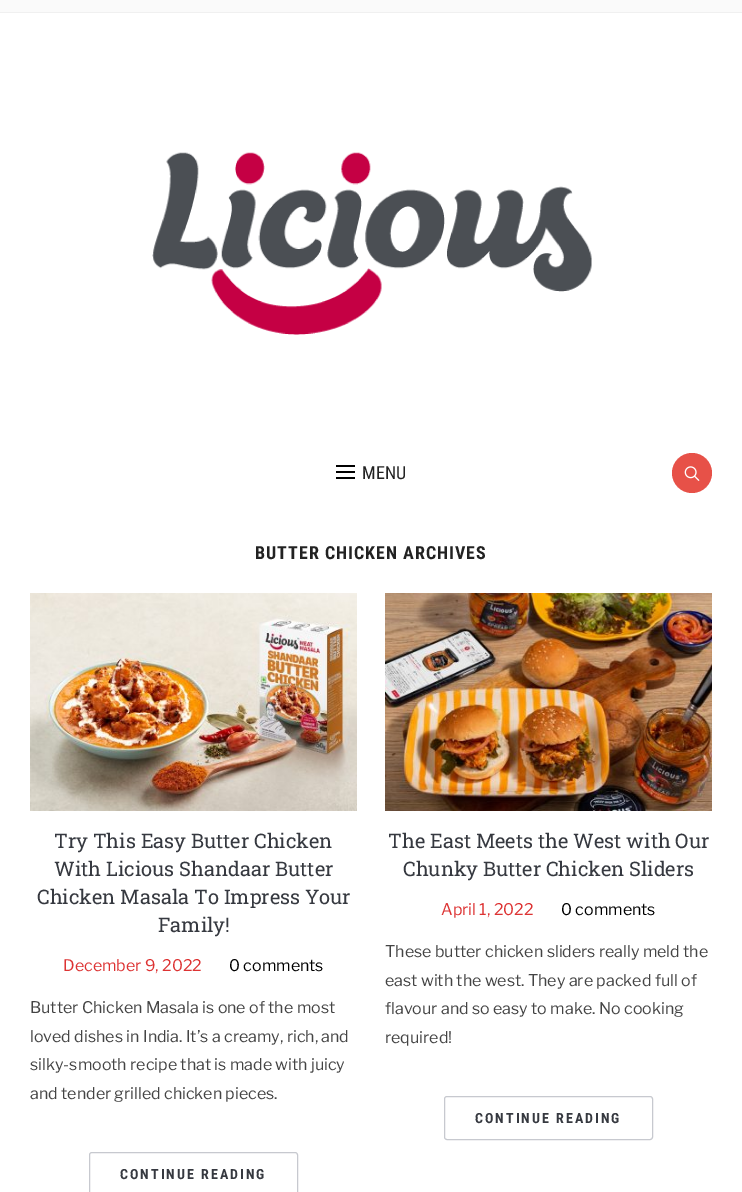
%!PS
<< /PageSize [742 1192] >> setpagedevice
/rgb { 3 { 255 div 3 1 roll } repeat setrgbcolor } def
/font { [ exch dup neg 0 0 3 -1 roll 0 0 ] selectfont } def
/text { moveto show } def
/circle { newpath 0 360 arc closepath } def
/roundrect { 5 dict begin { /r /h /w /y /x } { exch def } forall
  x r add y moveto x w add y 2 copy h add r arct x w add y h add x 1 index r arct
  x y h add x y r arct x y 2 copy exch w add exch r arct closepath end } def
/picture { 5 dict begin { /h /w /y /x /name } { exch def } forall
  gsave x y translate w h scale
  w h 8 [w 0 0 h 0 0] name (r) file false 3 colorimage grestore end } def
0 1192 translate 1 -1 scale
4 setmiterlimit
255 255 255 rgb
0 0 742 1192 rectfill
250 250 250 rgb
0 0 742 12 rectfill
240 240 240 rgb
0 12 742 1 rectfill
(img_01.rgb) 152 152 440 183 picture
0 0 0 rgb
336 465 19 2 rectfill
336 471 19 2 rectfill
336 477 19 2 rectfill
231 81 72 rgb
692 473 20 circle fill
(img_02.rgb) 684 466 16 15 picture
(img_03.rgb) 30 593 327 218 picture
199 201 207 rgb
89.5 1152.5 208 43 2.5 roundrect stroke
(img_04.rgb) 385 593 327 218 picture
444.5 1096.5 208 43 2.5 roundrect stroke
/RobotoCondensed-Regular 18 font
34 34 34 rgb
(MENU) 362 479 text
/RobotoCondensed-Bold 18 font
255 559 moveto 1 0 (BUTTER CHICKEN ARCHIVES) ashow
/RobotoSlab-Regular 20 font
54 57 64 rgb
(Try This Easy Butter Chicken) 54 848 text
(With Licious Shandaar Butter) 54 876 text
(Chicken Masala To Impress Your) 37 904 text
(Family!) 158 932 text
/LibreFranklin-Regular 16 font
221 51 51 rgb
(December 9, 2022) 63 971 text
0 0 0 rgb
(0 comments) 229 971 text
68 68 68 rgb
(Butter Chicken Masala is one of the most) 30 1013 text
(loved dishes in India. It’s a creamy, rich, and) 30 1042 text
(silky-smooth recipe that is made with juicy) 30 1070 text
(and tender grilled chicken pieces.) 30 1099 text
/RobotoCondensed-Bold 14 font
54 57 64 rgb
120 1179 moveto 2 0 (CONTINUE READING) ashow
/RobotoSlab-Regular 20 font
(The East Meets the West with Our) 388 848 text
(Chunky Butter Chicken Sliders) 403 876 text
/LibreFranklin-Regular 16 font
221 51 51 rgb
(April 1, 2022) 441 915 text
0 0 0 rgb
(0 comments) 561 915 text
68 68 68 rgb
(These butter chicken sliders really meld the) 385 957 text
(east with the west. They are packed full of) 385 986 text
(flavour and so easy to make. No cooking) 385 1014 text
(required!) 385 1043 text
/RobotoCondensed-Bold 14 font
54 57 64 rgb
475 1123 moveto 2 0 (CONTINUE READING) ashow
showpage
